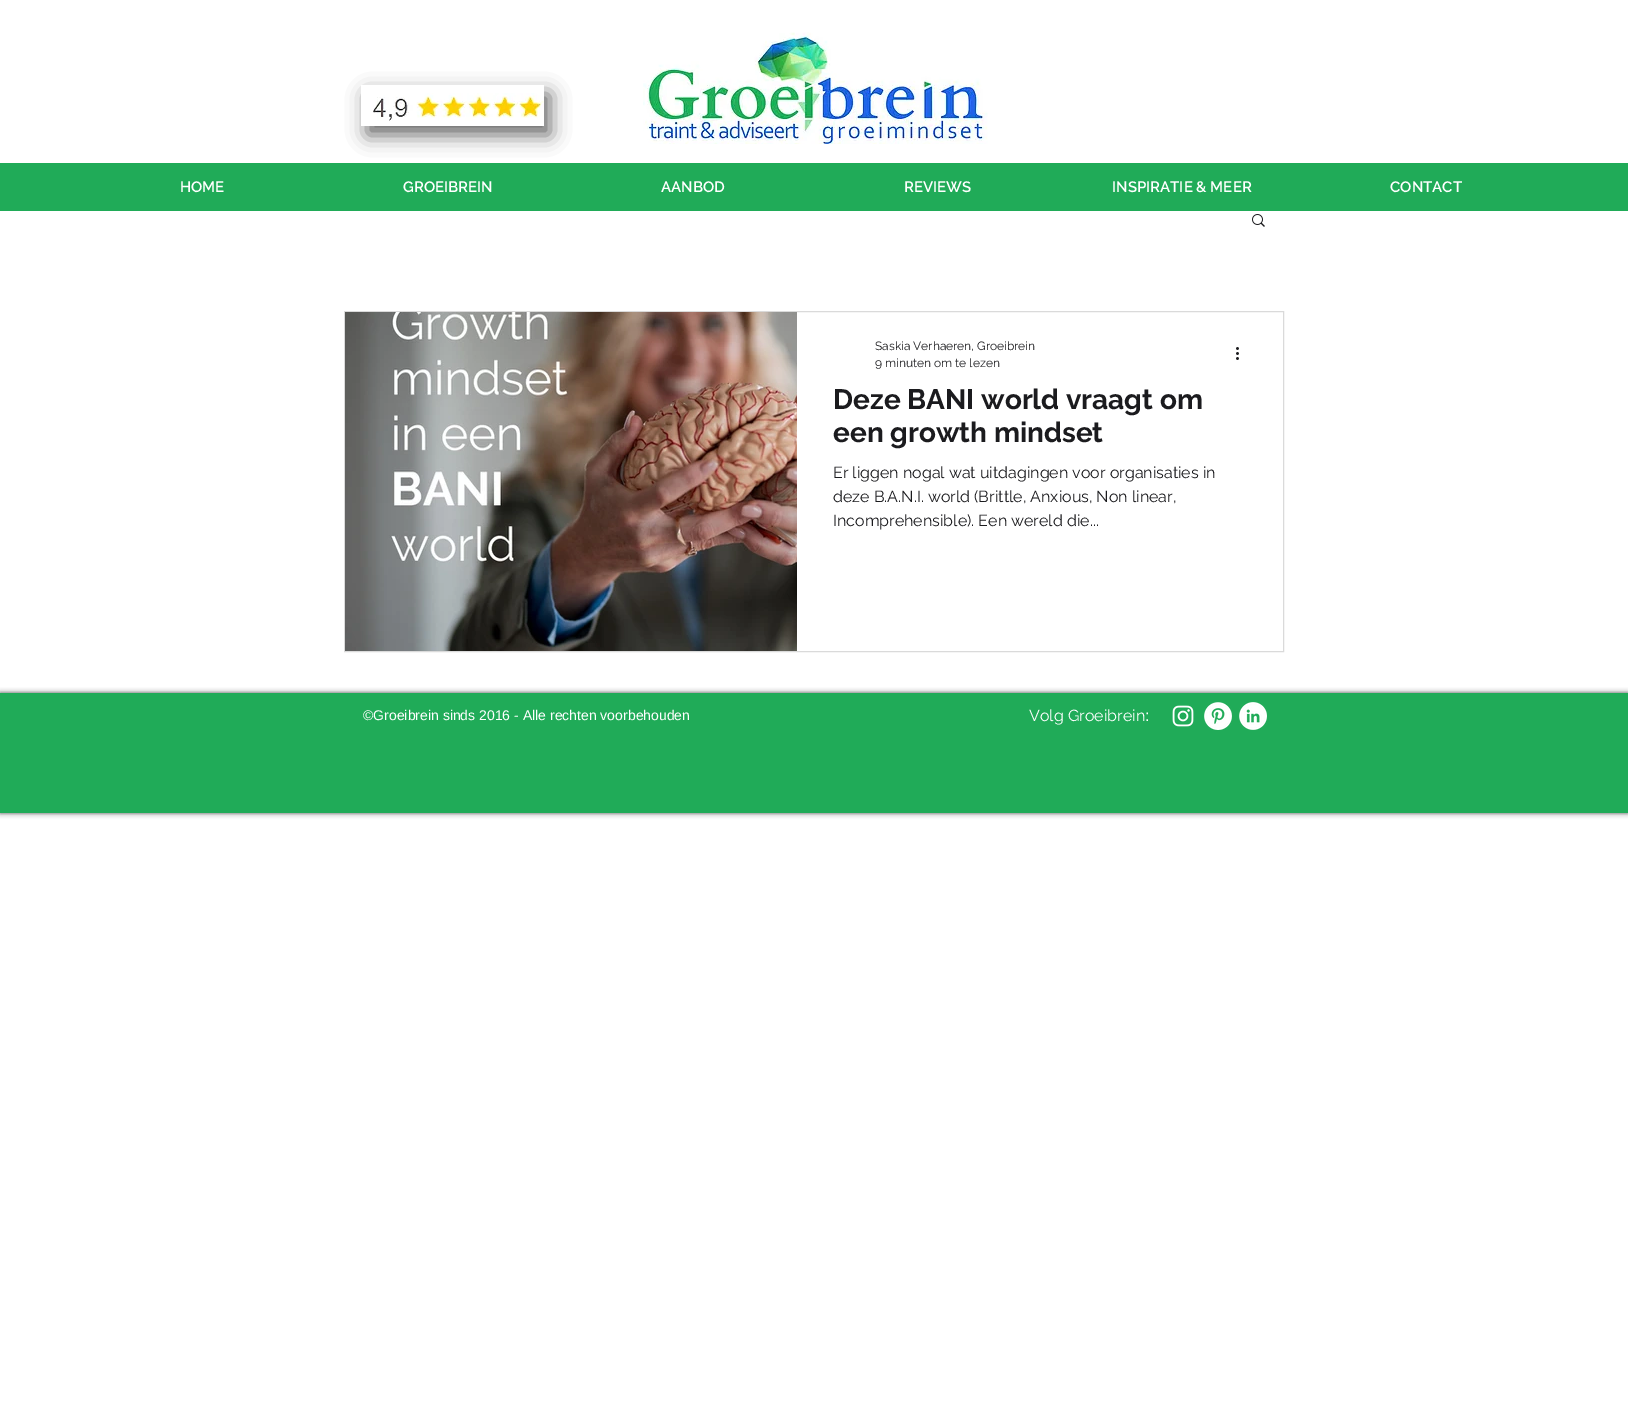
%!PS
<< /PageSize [1628 1427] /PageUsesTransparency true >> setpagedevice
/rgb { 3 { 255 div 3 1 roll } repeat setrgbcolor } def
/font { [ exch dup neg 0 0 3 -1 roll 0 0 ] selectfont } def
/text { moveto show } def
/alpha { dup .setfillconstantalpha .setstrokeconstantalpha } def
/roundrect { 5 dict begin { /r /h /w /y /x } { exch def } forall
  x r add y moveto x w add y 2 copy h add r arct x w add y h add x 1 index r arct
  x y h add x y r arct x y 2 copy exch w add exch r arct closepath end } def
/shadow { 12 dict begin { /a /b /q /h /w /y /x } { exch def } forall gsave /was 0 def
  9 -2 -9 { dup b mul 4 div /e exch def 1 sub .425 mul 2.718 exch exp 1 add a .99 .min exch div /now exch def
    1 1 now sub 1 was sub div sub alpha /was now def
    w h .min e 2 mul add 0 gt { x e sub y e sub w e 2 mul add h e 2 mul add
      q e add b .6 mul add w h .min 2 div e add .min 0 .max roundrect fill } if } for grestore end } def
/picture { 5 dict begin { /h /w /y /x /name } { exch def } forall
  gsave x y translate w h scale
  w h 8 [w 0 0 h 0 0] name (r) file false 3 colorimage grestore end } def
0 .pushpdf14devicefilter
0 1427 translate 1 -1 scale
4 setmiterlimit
255 255 255 rgb
0 0 1628 1427 rectfill
gsave
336 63 moveto 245 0 rlineto 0 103 rlineto -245 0 rlineto closepath 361 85 moveto 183 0 rlineto 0 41 rlineto -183 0 rlineto closepath eoclip newpath
0 0 0 rgb
367 94 183 41 0 10 0.6 shadow
grestore
(img_01.rgb) 373 93 171 28 picture
(img_02.rgb) 643 32 345 112 picture
32 171 88 rgb
0 163 1628 48 rectfill
(img_03.rgb) 1252 214 13 13 picture
218 218 218 rgb
344.5 311.5 939 340 rectstroke
(img_04.rgb) 345 312 452 339 picture
(img_05.rgb) 1236 347 3 13 picture
0 0 0 rgb
0 693 1628 120 0 2.5 0.7 shadow
32 171 88 rgb
0 693 1628 120 rectfill
(img_06.rgb) 1172 705 22 22 picture
(img_07.rgb) 1204 702 28 28 picture
(img_08.rgb) 1239 702 28 28 picture
/Raleway-SemiBold 15 font
255 255 255 rgb
(HOME) 180 192 text
(GROEIBREIN) 403 192 text
(AANBOD) 661 192 text
(REVIEWS) 904 192 text
(INSPIRATIE & MEER) 1112 192 text
(CONTACT) 1390 192 text
/Raleway-Regular 12 font
27 27 30 rgb
(Saskia Verhaeren, Groeibrein) 875 350 text
(9 minuten om te lezen) 875 367 text
/Raleway-Bold 28 font
(Deze BANI world vraagt om) 833 409 text
(een growth mindset) 833 442 text
/Raleway-Regular 16 font
(Er liggen nogal wat uitdagingen voor organisaties in) 833 478 text
(deze B.A.N.I. world \(Brittle, Anxious, Non linear,) 833 502 text
(Incomprehensible\). Een wereld die...) 833 526 text
/LiberationSans-Regular 14 font
255 255 255 rgb
(©Groeibrein sinds 2016 - Alle rechten voorbehouden) 363 720 text
/Raleway-Regular 16 font
(Volg Groeibrein) 1029 721 text
/LiberationSans-Regular 16 font
(:) 1145 721 text
.poppdf14devicefilter showpage
